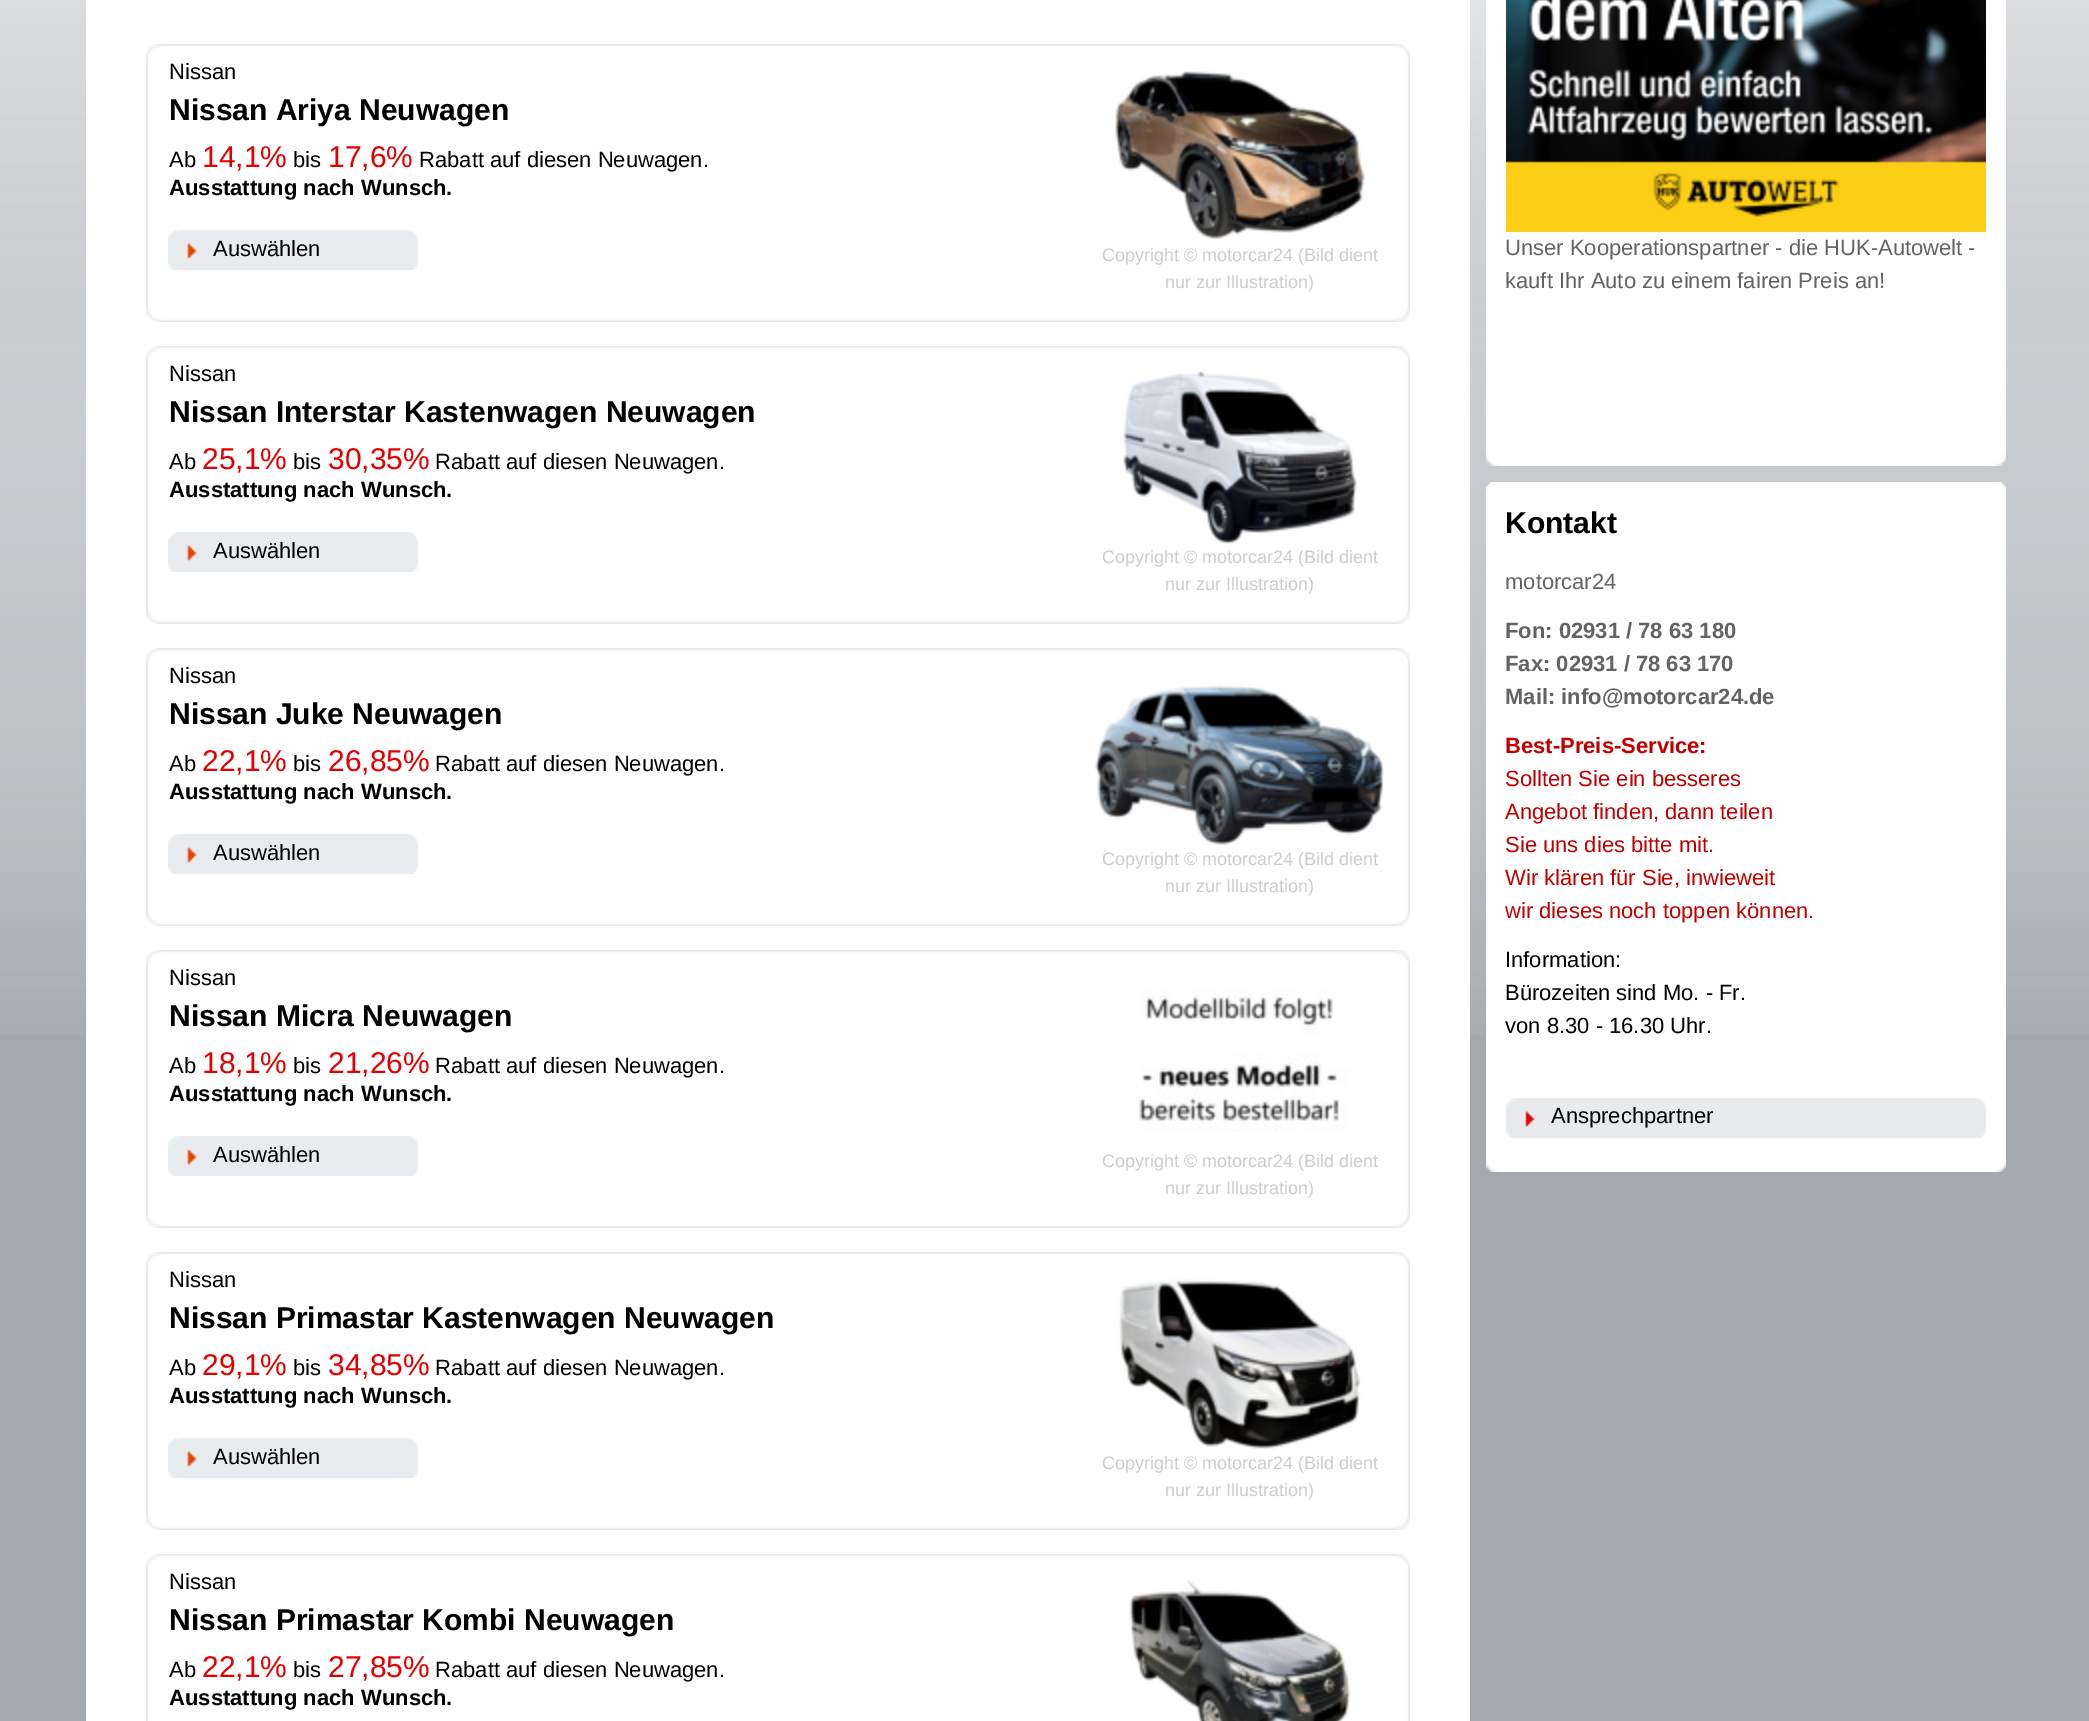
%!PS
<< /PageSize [2089 1721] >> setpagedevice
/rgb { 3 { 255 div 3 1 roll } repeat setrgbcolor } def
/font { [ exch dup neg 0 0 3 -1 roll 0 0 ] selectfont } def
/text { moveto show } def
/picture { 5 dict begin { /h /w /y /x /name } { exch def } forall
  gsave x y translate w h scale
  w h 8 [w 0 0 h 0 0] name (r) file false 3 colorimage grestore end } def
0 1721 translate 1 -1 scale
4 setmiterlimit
164 169 173 rgb
0 0 2089 1721 rectfill
(img_01.rgb) 0 0 2089 1035 picture
255 255 255 rgb
86 0 1384 1721 rectfill
(img_02.rgb) 146 44 1264 14 picture
(img_03.rgb) 146 58 1264 264 picture
(img_04.rgb) 168 230 250 40 picture
(img_05.rgb) 1115 71 250 168 picture
(img_02.rgb) 146 346 1264 14 picture
(img_03.rgb) 146 360 1264 264 picture
(img_04.rgb) 168 532 250 40 picture
(img_06.rgb) 1123 371 234 173 picture
(img_02.rgb) 146 648 1264 14 picture
(img_03.rgb) 146 662 1264 264 picture
(img_04.rgb) 168 834 250 40 picture
(img_07.rgb) 1095 685 289 160 picture
(img_02.rgb) 146 950 1264 14 picture
(img_03.rgb) 146 964 1264 264 picture
(img_04.rgb) 168 1136 250 40 picture
(img_08.rgb) 1139 990 209 142 picture
(img_02.rgb) 146 1252 1264 14 picture
(img_03.rgb) 146 1266 1264 264 picture
(img_04.rgb) 168 1438 250 40 picture
(img_09.rgb) 1119 1278 242 171 picture
(img_02.rgb) 146 1554 1264 14 picture
(img_10.rgb) 146 1568 1264 153 picture
(img_11.rgb) 1129 1580 222 141 picture
1486 0 520 452 rectfill
(img_12.rgb) 1506 0 480 232 picture
(img_13.rgb) 1486 452 520 14 picture
(img_14.rgb) 1486 482 520 676 picture
(img_15.rgb) 1506 1098 480 40 picture
(img_16.rgb) 1486 1158 520 14 picture
/LiberationSans-Regular 22 font
0 0 0 rgb
(Nissan) 169 79 text
/LiberationSans-Bold 30 font
(Nissan Ariya Neuwagen) 169 120 text
/LiberationSans-Regular 22 font
(Ab) 169 167 text
/LiberationSans-Regular 30 font
227 0 0 rgb
(14,1%) 202 167 text
/LiberationSans-Regular 22 font
0 0 0 rgb
(bis) 293 167 text
/LiberationSans-Regular 30 font
227 0 0 rgb
(17,6%) 328 167 text
/LiberationSans-Regular 22 font
0 0 0 rgb
(Rabatt auf diesen Neuwagen.) 419 167 text
/LiberationSans-Bold 22 font
(Ausstattung nach Wunsch.) 169 195 text
/LiberationSans-Regular 22 font
(Auswählen) 213 256 text
/LiberationSans-Regular 18 font
204 204 204 rgb
(Copyright © motorcar24 \(Bild dient) 1102 261 text
(nur zur Illustration\)) 1165 288 text
/LiberationSans-Regular 22 font
0 0 0 rgb
(Nissan) 169 381 text
/LiberationSans-Bold 30 font
(Nissan Interstar Kastenwagen Neuwagen) 169 422 text
/LiberationSans-Regular 22 font
(Ab) 169 469 text
/LiberationSans-Regular 30 font
227 0 0 rgb
(25,1%) 202 469 text
/LiberationSans-Regular 22 font
0 0 0 rgb
(bis) 293 469 text
/LiberationSans-Regular 30 font
227 0 0 rgb
(30,35%) 328 469 text
/LiberationSans-Regular 22 font
0 0 0 rgb
(Rabatt auf diesen Neuwagen.) 435 469 text
/LiberationSans-Bold 22 font
(Ausstattung nach Wunsch.) 169 497 text
/LiberationSans-Regular 22 font
(Auswählen) 213 558 text
/LiberationSans-Regular 18 font
204 204 204 rgb
(Copyright © motorcar24 \(Bild dient) 1102 563 text
(nur zur Illustration\)) 1165 590 text
/LiberationSans-Regular 22 font
0 0 0 rgb
(Nissan) 169 683 text
/LiberationSans-Bold 30 font
(Nissan Juke Neuwagen) 169 724 text
/LiberationSans-Regular 22 font
(Ab) 169 771 text
/LiberationSans-Regular 30 font
227 0 0 rgb
(22,1%) 202 771 text
/LiberationSans-Regular 22 font
0 0 0 rgb
(bis) 293 771 text
/LiberationSans-Regular 30 font
227 0 0 rgb
(26,85%) 328 771 text
/LiberationSans-Regular 22 font
0 0 0 rgb
(Rabatt auf diesen Neuwagen.) 435 771 text
/LiberationSans-Bold 22 font
(Ausstattung nach Wunsch.) 169 799 text
/LiberationSans-Regular 22 font
(Auswählen) 213 860 text
/LiberationSans-Regular 18 font
204 204 204 rgb
(Copyright © motorcar24 \(Bild dient) 1102 865 text
(nur zur Illustration\)) 1165 892 text
/LiberationSans-Regular 22 font
0 0 0 rgb
(Nissan) 169 985 text
/LiberationSans-Bold 30 font
(Nissan Micra Neuwagen) 169 1026 text
/LiberationSans-Regular 22 font
(Ab) 169 1073 text
/LiberationSans-Regular 30 font
227 0 0 rgb
(18,1%) 202 1073 text
/LiberationSans-Regular 22 font
0 0 0 rgb
(bis) 293 1073 text
/LiberationSans-Regular 30 font
227 0 0 rgb
(21,26%) 328 1073 text
/LiberationSans-Regular 22 font
0 0 0 rgb
(Rabatt auf diesen Neuwagen.) 435 1073 text
/LiberationSans-Bold 22 font
(Ausstattung nach Wunsch.) 169 1101 text
/LiberationSans-Regular 22 font
(Auswählen) 213 1162 text
/LiberationSans-Regular 18 font
204 204 204 rgb
(Copyright © motorcar24 \(Bild dient) 1102 1167 text
(nur zur Illustration\)) 1165 1194 text
/LiberationSans-Regular 22 font
0 0 0 rgb
(Nissan) 169 1287 text
/LiberationSans-Bold 30 font
(Nissan Primastar Kastenwagen Neuwagen) 169 1328 text
/LiberationSans-Regular 22 font
(Ab) 169 1375 text
/LiberationSans-Regular 30 font
227 0 0 rgb
(29,1%) 202 1375 text
/LiberationSans-Regular 22 font
0 0 0 rgb
(bis) 293 1375 text
/LiberationSans-Regular 30 font
227 0 0 rgb
(34,85%) 328 1375 text
/LiberationSans-Regular 22 font
0 0 0 rgb
(Rabatt auf diesen Neuwagen.) 435 1375 text
/LiberationSans-Bold 22 font
(Ausstattung nach Wunsch.) 169 1403 text
/LiberationSans-Regular 22 font
(Auswählen) 213 1464 text
/LiberationSans-Regular 18 font
204 204 204 rgb
(Copyright © motorcar24 \(Bild dient) 1102 1469 text
(nur zur Illustration\)) 1165 1496 text
/LiberationSans-Regular 22 font
0 0 0 rgb
(Nissan) 169 1589 text
/LiberationSans-Bold 30 font
(Nissan Primastar Kombi Neuwagen) 169 1630 text
/LiberationSans-Regular 22 font
(Ab) 169 1677 text
/LiberationSans-Regular 30 font
227 0 0 rgb
(22,1%) 202 1677 text
/LiberationSans-Regular 22 font
0 0 0 rgb
(bis) 293 1677 text
/LiberationSans-Regular 30 font
227 0 0 rgb
(27,85%) 328 1677 text
/LiberationSans-Regular 22 font
0 0 0 rgb
(Rabatt auf diesen Neuwagen.) 435 1677 text
/LiberationSans-Bold 22 font
(Ausstattung nach Wunsch.) 169 1705 text
/LiberationSans-Regular 22 font
99 99 99 rgb
(Unser Kooperationspartner - die HUK-Autowelt -) 1505 255 text
(kauft Ihr Auto zu einem fairen Preis an!) 1505 288 text
/LiberationSans-Bold 30 font
0 0 0 rgb
(Kontakt) 1505 533 text
/LiberationSans-Regular 22 font
99 99 99 rgb
(motorcar24) 1505 589 text
/LiberationSans-Bold 22 font
(Fon: 02931 / 78 63 180) 1505 638 text
(Fax: 02931 / 78 63 170) 1505 671 text
(Mail: info@motorcar24.de) 1505 704 text
192 0 0 rgb
(Best-Preis-Service:) 1505 753 text
/LiberationSans-Regular 22 font
(Sollten Sie ein besseres) 1505 786 text
(Angebot finden, dann teilen) 1505 819 text
(Sie uns dies bitte mit.) 1505 852 text
(Wir klären für Sie, inwieweit) 1505 885 text
(wir dieses noch toppen können.) 1505 918 text
0 0 0 rgb
(Information:) 1505 967 text
(Bürozeiten sind Mo. - Fr.) 1505 1000 text
(von 8.30 - 16.30 Uhr.) 1505 1033 text
(Ansprechpartner) 1551 1123 text
showpage
